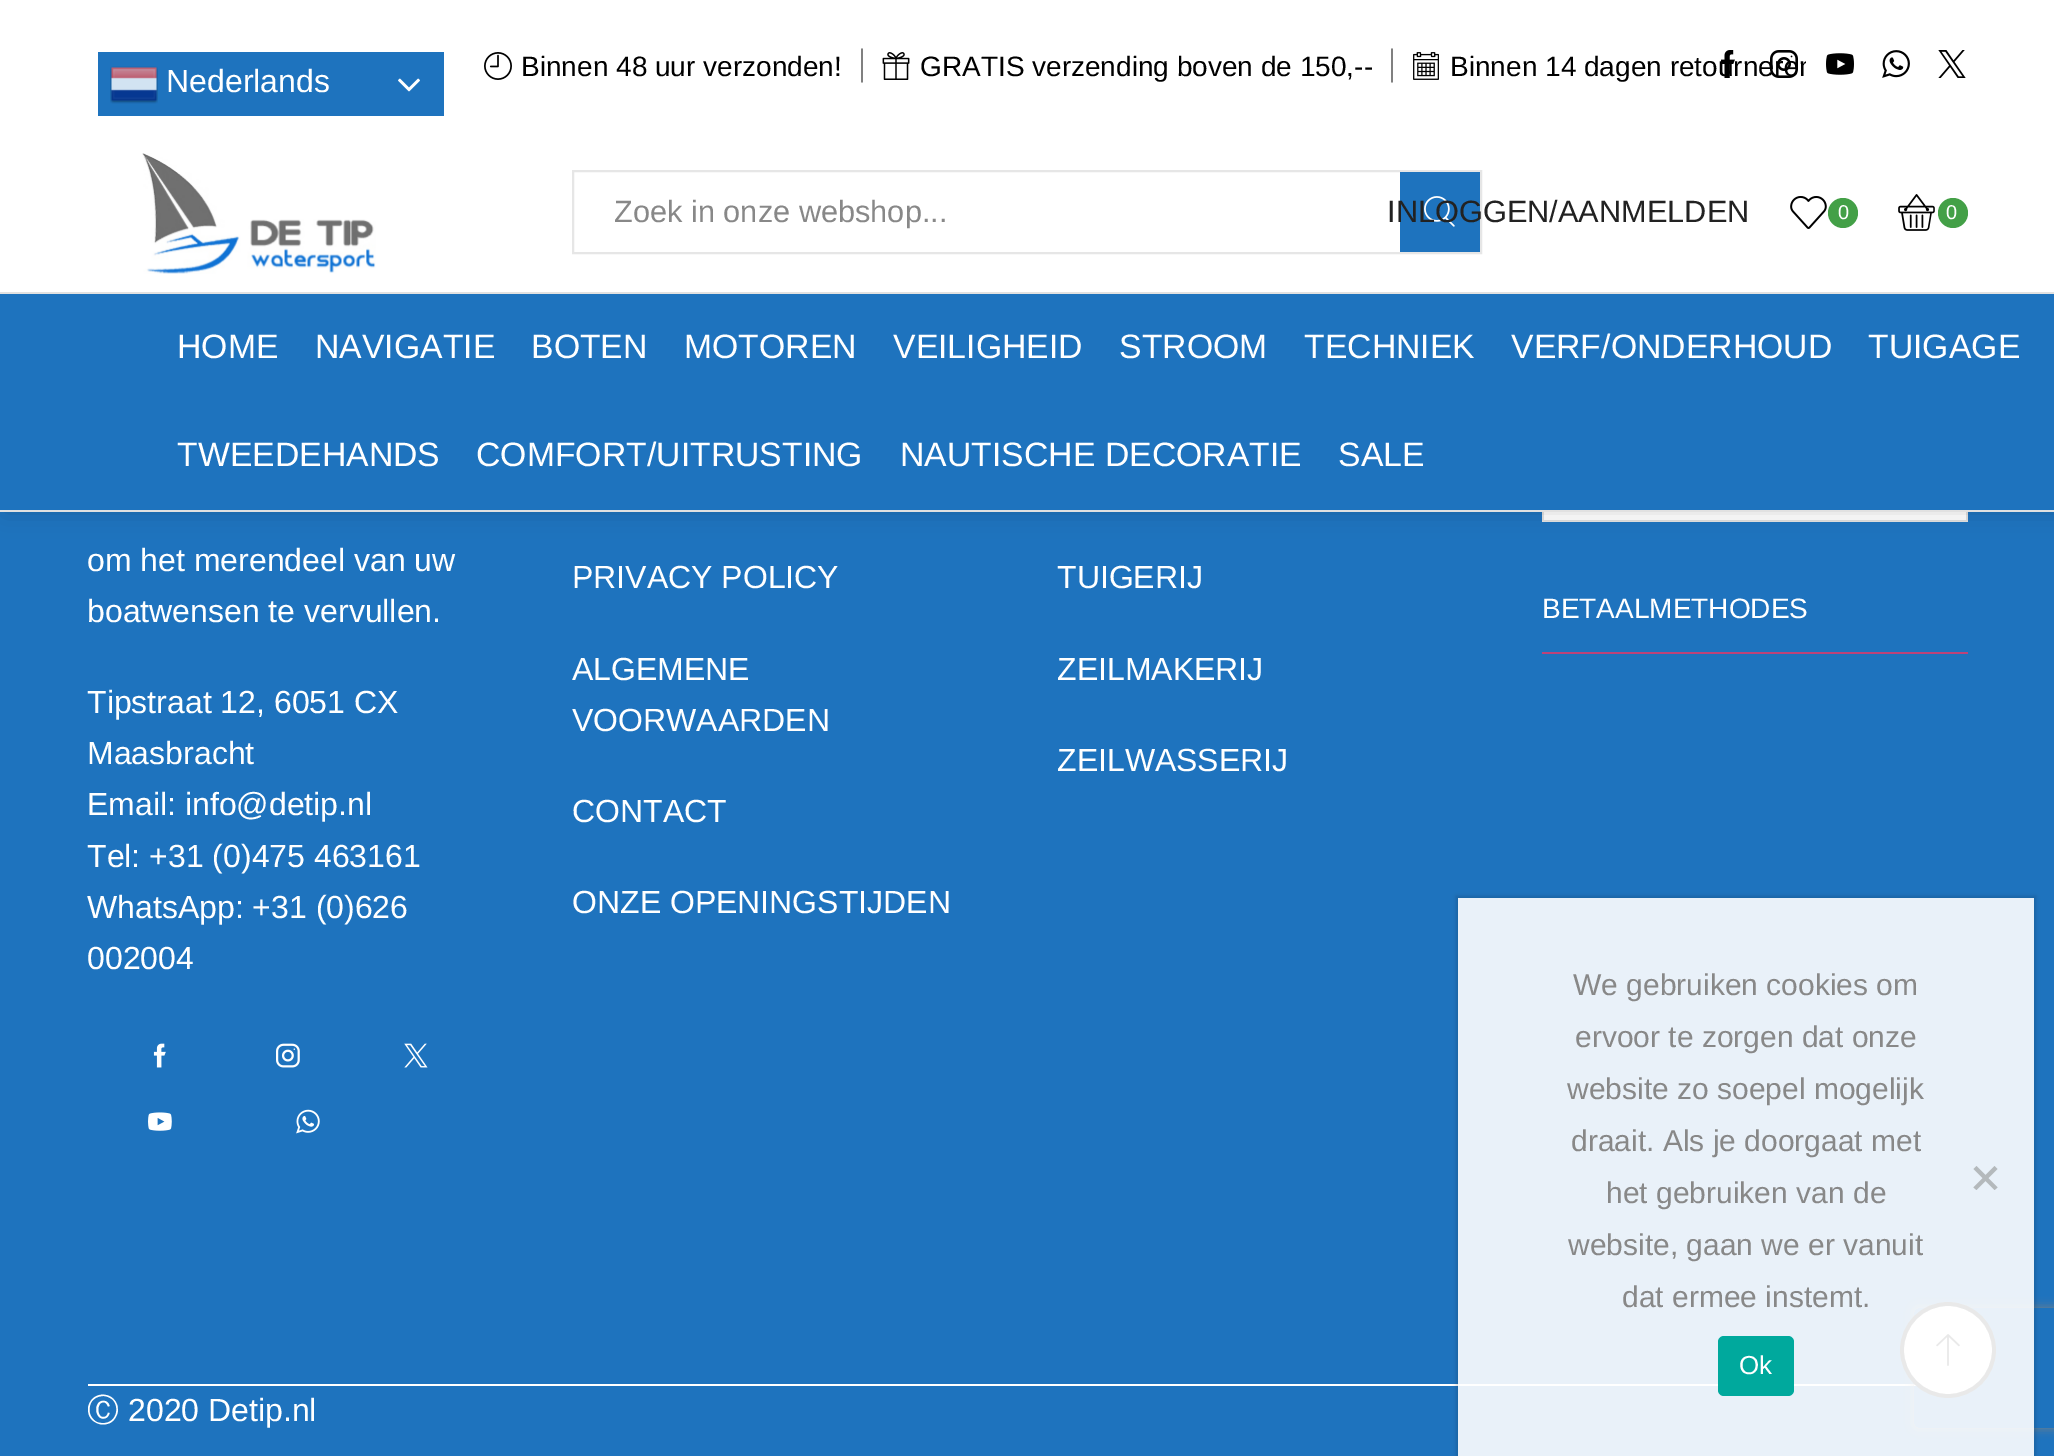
%!PS
<< /PageSize [2054 1456] /PageUsesTransparency true >> setpagedevice
/rgb { 3 { 255 div 3 1 roll } repeat setrgbcolor } def
/font { [ exch dup neg 0 0 3 -1 roll 0 0 ] selectfont } def
/text { moveto show } def
/alpha { dup .setfillconstantalpha .setstrokeconstantalpha } def
/circle { newpath 0 360 arc closepath } def
/roundrect { 5 dict begin { /r /h /w /y /x } { exch def } forall
  x r add y moveto x w add y 2 copy h add r arct x w add y h add x 1 index r arct
  x y h add x y r arct x y 2 copy exch w add exch r arct closepath end } def
/shadow { 12 dict begin { /a /b /q /h /w /y /x } { exch def } forall gsave /was 0 def
  9 -2 -9 { dup b mul 4 div /e exch def 1 sub .425 mul 2.718 exch exp 1 add a .99 .min exch div /now exch def
    1 1 now sub 1 was sub div sub alpha /was now def
    w h .min e 2 mul add 0 gt { x e sub y e sub w e 2 mul add h e 2 mul add
      q e add b .6 mul add w h .min 2 div e add .min 0 .max roundrect fill } if } for grestore end } def
/picture { 5 dict begin { /h /w /y /x /name } { exch def } forall
  gsave x y translate w h scale
  w h 8 [w 0 0 h 0 0] name (r) file false 3 colorimage grestore end } def
0 .pushpdf14devicefilter
0 1456 translate 1 -1 scale
4 setmiterlimit
30 115 190 rgb
0 0 2054 1456 rectfill
255 255 255 rgb
1544 512 422 8 rectfill
225 225 225 rgb
1542 520 266 2 rectfill
1542 512 2 10 rectfill
1966 512 2 10 rectfill
1808 520 160 2 rectfill
0 0 0 rgb
4 294 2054 218 0 12 0.15 shadow
255 255 255 rgb
0 0 2054 292 rectfill
30 115 190 rgb
98 52 346 64 rectfill
(img_01.rgb) 110 66 48 38 picture
(img_02.rgb) 398 78 22 14 picture
(img_03.rgb) 484 52 28 28 picture
(img_04.rgb) 882 52 28 28 picture
(img_05.rgb) 1413 52 26 28 picture
(img_08.rgb) 1826 53 28 22 picture
(img_09.rgb) 1882 50 28 28 picture
(img_10.rgb) 1938 50 28 28 picture
225 225 225 rgb
0 292 2054 2 rectfill
(img_11.rgb) 142 153 234 121 picture
230 230 230 rgb
2 setlinewidth
573 171 908 82 rectstroke
30 115 190 rgb
1400 172 80 80 rectfill
(img_12.rgb) 1424 196 31 31 picture
(img_13.rgb) 1790 196 37 33 picture
67 160 71 rgb
1843 213 15 circle fill
(img_14.rgb) 1898 194 37 37 picture
1953 213 15 circle fill
30 115 190 rgb
0 294 2054 216 rectfill
225 225 225 rgb
0 510 2054 2 rectfill
(img_15.rgb) 153 1043 13 25 picture
(img_16.rgb) 276 1043 24 25 picture
(img_17.rgb) 404 1043 24 25 picture
(img_18.rgb) 148 1112 24 19 picture
(img_19.rgb) 296 1109 24 25 picture
189 67 121 rgb
1542 652 426 2 rectfill
255 255 255 rgb
88 1384 1829 2 rectfill
gsave
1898 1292 moveto 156 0 rlineto 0 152 rlineto -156 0 rlineto closepath 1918 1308 moveto 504 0 rlineto 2 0 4 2 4 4 rcurveto 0 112 rlineto 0 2 -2 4 -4 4 rcurveto -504 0 rlineto -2 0 -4 -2 -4 -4 rcurveto 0 -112 rlineto 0 -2 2 -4 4 -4 rcurveto closepath eoclip newpath
128 128 128 rgb
1914 1308 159 120 4 5 1 shadow
grestore
1948 1350 45 circle gsave fill grestore
225 225 225 rgb
stroke
34 34 34 rgb
3.8 setlinewidth
1948 1304 moveto 25.5 0 46 20.5 46 46 rcurveto 0 25.5 -20.5 46 -46 46 rcurveto -25.5 0 -46 -20.5 -46 -46 rcurveto 0 -25.5 20.5 -46 46 -46 rcurveto stroke
(img_20.rgb) 1936 1334 24 32 picture
gsave
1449 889 moveto 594 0 rlineto 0 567 rlineto -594 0 rlineto closepath 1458 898 moveto 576 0 rlineto 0 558 rlineto -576 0 rlineto closepath eoclip newpath
0 0 0 rgb
1456 896 580 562 0 2 0.15 shadow
grestore
0.9 alpha
255 255 255 rgb
1458 898 576 558 rectfill
1 alpha
180 185 188 rgb
1994.5 1166 moveto 3 3 rlineto -21 21 rlineto -3 -2.5 rlineto closepath fill
1973.5 1169 moveto 3 -3 rlineto 21 21.5 rlineto -3 2.5 rlineto closepath fill
0 169 157 rgb
1718 1336 76 60 6 roundrect fill
/LiberationSans-Regular 32 font
255 255 255 rgb
(Nederlands) 166 92 text
/LiberationSans-Regular 28 font
0 0 0 rgb
(Binnen 48 uur verzonden!) 521 76 text
/LiberationSerif-Regular 28 font
128 128 128 rgb
(│) 852 74 text
/LiberationSans-Regular 28 font
0 0 0 rgb
(GRATIS verzending boven de 150,--) 920 76 text
/LiberationSerif-Regular 28 font
128 128 128 rgb
(│) 1382 74 text
gsave
484 40 1322 52 rectclip
/LiberationSans-Regular 28 font
0 0 0 rgb
(Binnen 14 dagen retourneren) 1450 76 text
grestore
(img_06.rgb) 1721 50 14 28 picture
(img_07.rgb) 1770 50 28 28 picture
/LiberationSans-Regular 30.75 font
136 136 136 rgb
(Zoek in onze webshop...) 614 222 text
34 34 34 rgb
(INLOGGEN/AANMELDEN) 1387 222 text
/LiberationSans-Regular 20 font
255 255 255 rgb
(0) 1838 219 text
(0) 1946 219 text
/LiberationSans-Regular 33.8 font
(HOME) 177 358 text
(NAVIGATIE) 315 358 text
(BOTEN) 531 358 text
(MOTOREN) 684 358 text
(VEILIGHEID) 893 358 text
(STROOM) 1119 358 text
(TECHNIEK) 1304 358 text
(VERF/ONDERHOUD) 1511 358 text
(TUIGAGE) 1868 358 text
(TWEEDEHANDS) 177 466 text
(COMFORT/UITRUSTING) 476 466 text
(NAUTISCHE DECORATIE) 900 466 text
(SALE) 1338 466 text
/LiberationSans-Regular 32 font
(om het merendeel van uw) 87 571 text
(boatwensen te vervullen.) 87 622 text
(Tipstraat 12, 6051 CX) 87 713 text
(Maasbracht) 87 764 text
(Email: info@detip.nl) 87 815 text
(Tel: +31 \(0\)475 463161) 87 867 text
(WhatsApp: +31 \(0\)626) 87 918 text
(002004) 87 969 text
(PRIVACY POLICY) 572 588 text
(ALGEMENE) 572 680 text
(VOORWAARDEN) 572 731 text
(CONTACT) 572 822 text
(ONZE OPENINGSTIJDEN) 572 913 text
(TUIGERIJ) 1057 588 text
(ZEILMAKERIJ) 1057 680 text
(ZEILWASSERIJ) 1057 771 text
/LiberationSans-Regular 28 font
(BETAALMETHODES) 1542 618 text
/WenQuanYiZenHei-Medium 32 font
(Ⓒ) 87 1421 text
/LiberationSans-Regular 32 font
(2020 Detip.nl) 128 1421 text
/LiberationSans-Regular 30 font
136 136 136 rgb
(We gebruiken cookies om) 1573 995 text
(ervoor te zorgen dat onze) 1575 1047 text
(website zo soepel mogelijk) 1567 1099 text
(draait. Als je doorgaat met) 1571 1151 text
(het gebruiken van de) 1606 1203 text
(website, gaan we er vanuit) 1568 1255 text
(dat ermee instemt.) 1622 1307 text
/LiberationSans-Regular 26 font
255 255 255 rgb
(Ok) 1739 1374 text
.poppdf14devicefilter showpage
